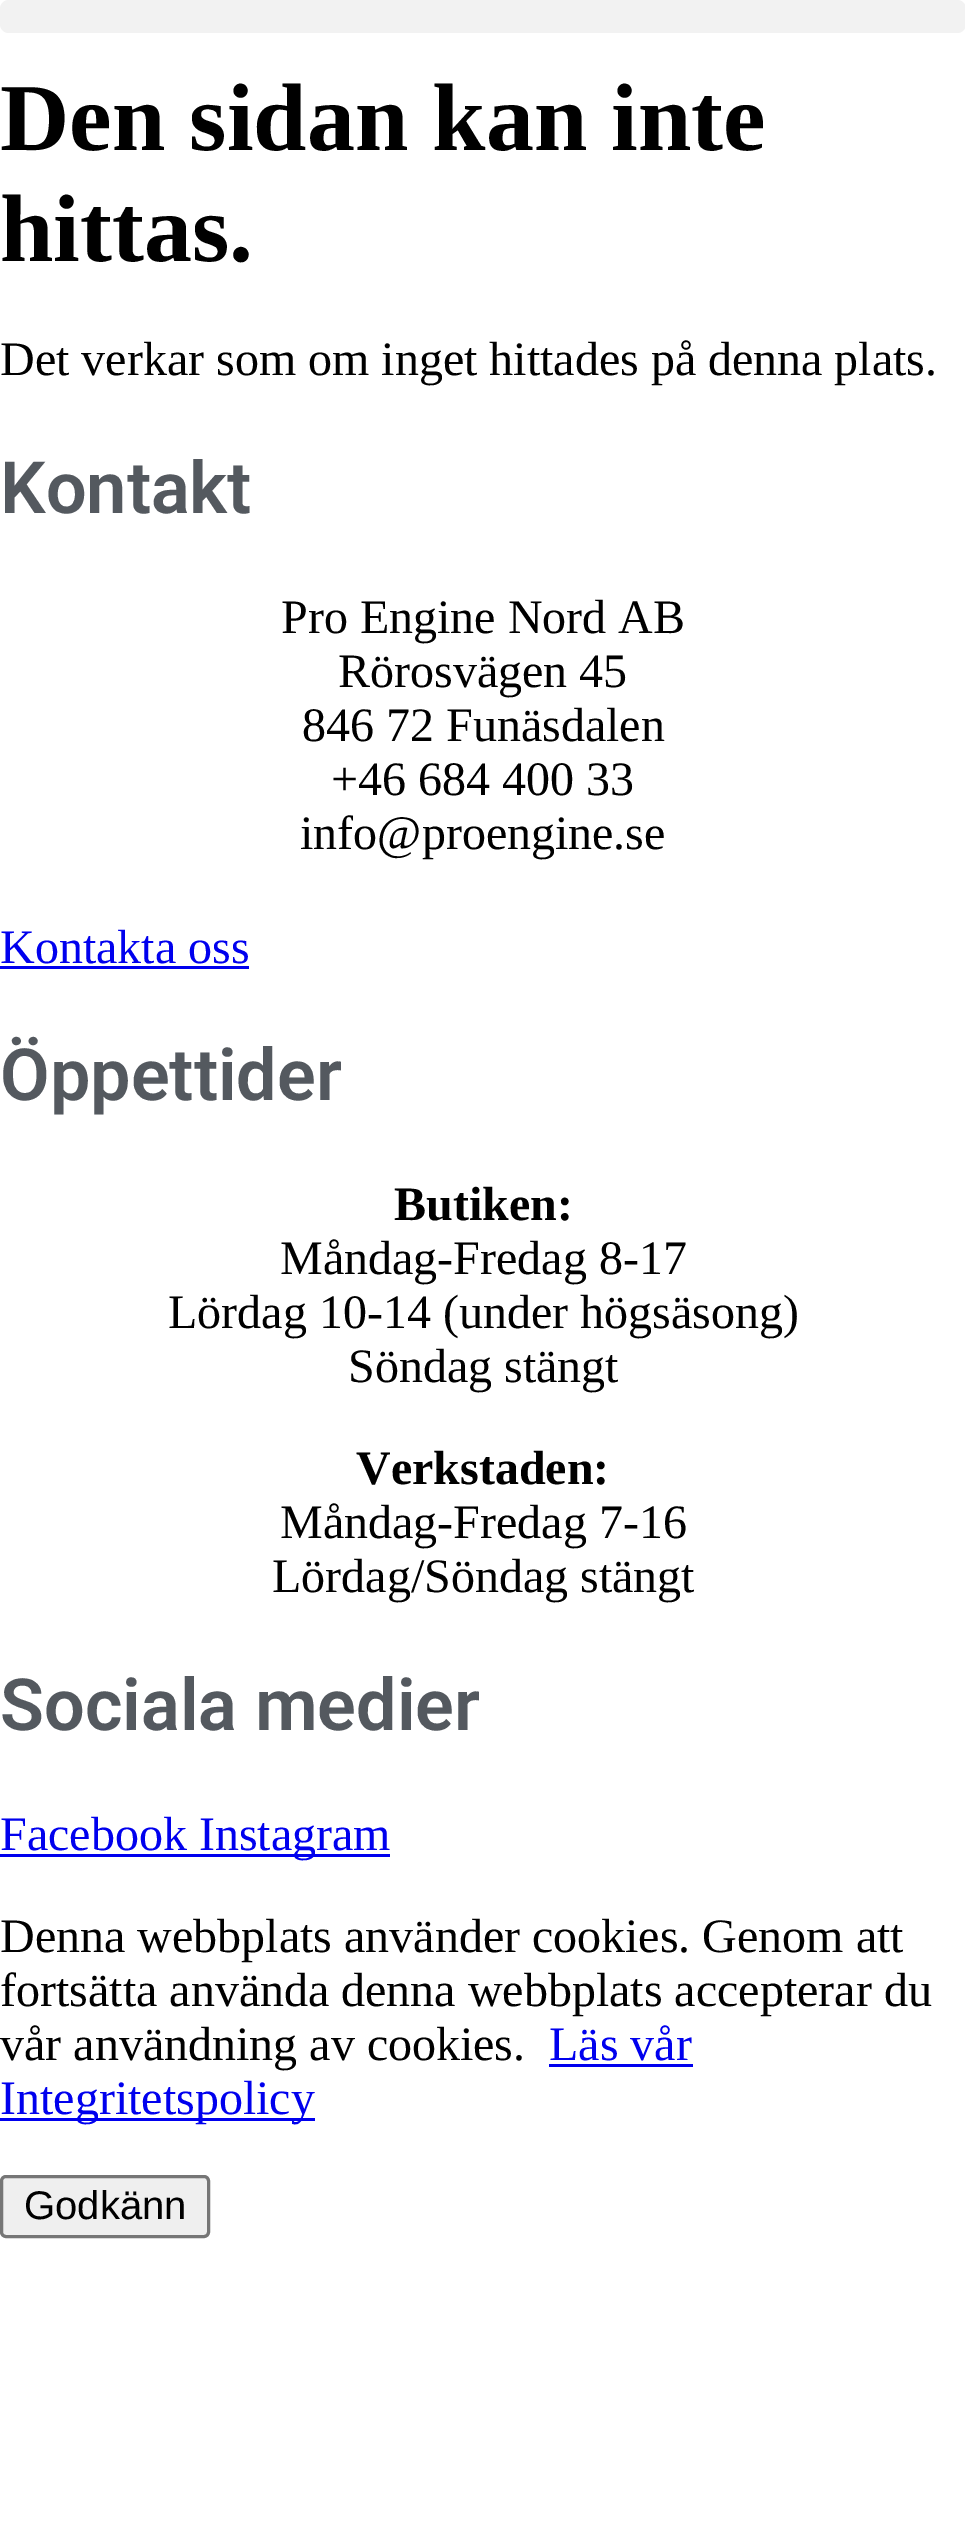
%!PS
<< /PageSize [965 2533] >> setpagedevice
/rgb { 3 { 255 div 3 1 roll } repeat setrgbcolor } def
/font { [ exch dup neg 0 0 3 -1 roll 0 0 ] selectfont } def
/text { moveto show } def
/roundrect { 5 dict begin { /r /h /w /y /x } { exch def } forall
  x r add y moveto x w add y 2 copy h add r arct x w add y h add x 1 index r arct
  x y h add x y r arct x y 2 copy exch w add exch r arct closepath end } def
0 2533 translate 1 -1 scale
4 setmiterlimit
255 255 255 rgb
0 0 965 2533 rectfill
242 242 242 rgb
0 0 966 33 9 roundrect fill
0 0 238 rgb
0 966 249 3 rectfill
0 1854 390 3 rectfill
549 2064 144 3 rectfill
0 2118 315 3 rectfill
239 239 239 rgb
1.5 2176.5 207 60 4.5 roundrect gsave fill grestore
118 118 118 rgb
3 setlinewidth
stroke
/LiberationSerif-Bold 96 font
0 0 0 rgb
(Den sidan kan inte) 0 150 text
(hittas.) 0 261 text
/LiberationSerif-Regular 48 font
(Det verkar som om inget hittades på denna plats.) 0 375 text
/Roboto-SemiBold 72 font
84 89 95 rgb
(Kontakt) 0 513 text
/LiberationSerif-Regular 48 font
0 0 0 rgb
(Pro Engine Nord AB) 281 633 text
(Rörosvägen 45) 338 687 text
(846 72 Funäsdalen) 302 741 text
(+46 684 400 33) 331 795 text
(info@proengine.se) 300 849 text
0 0 238 rgb
(Kontakta oss) 0 963 text
/Roboto-SemiBold 72 font
84 89 95 rgb
(Öppettider) 0 1100 text
/LiberationSerif-Bold 48 font
0 0 0 rgb
(Butiken:) 394 1220 text
/LiberationSerif-Regular 48 font
(Måndag-Fredag 8-17) 280 1274 text
(Lördag 10-14 \(under högsäsong\)) 168 1328 text
(Söndag stängt) 348 1382 text
/LiberationSerif-Bold 48 font
(Verkstaden:) 356 1484 text
/LiberationSerif-Regular 48 font
(Måndag-Fredag 7-16) 280 1538 text
(Lördag/Söndag stängt) 272 1592 text
/Roboto-SemiBold 72 font
84 89 95 rgb
(Sociala medier) 0 1730 text
/LiberationSerif-Regular 48 font
0 0 238 rgb
(Facebook Instagram) 0 1850 text
0 0 0 rgb
(Denna webbplats använder cookies. Genom att) 0 1952 text
(fortsätta använda denna webbplats accepterar du) 0 2006 text
(vår användning av cookies.) 0 2060 text
0 0 238 rgb
(Läs vår) 549 2060 text
(Integritetspolicy) 0 2114 text
/LiberationSans-Regular 40 font
0 0 0 rgb
(Godkänn) 24 2219 text
showpage
